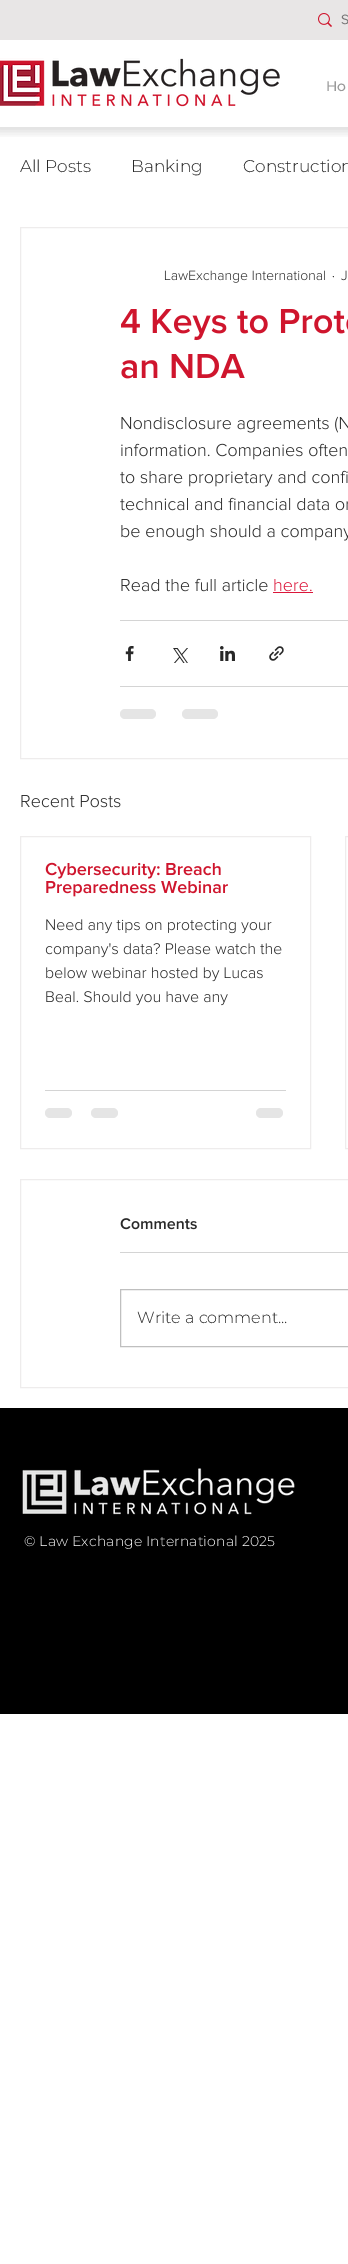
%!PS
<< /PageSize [348 2264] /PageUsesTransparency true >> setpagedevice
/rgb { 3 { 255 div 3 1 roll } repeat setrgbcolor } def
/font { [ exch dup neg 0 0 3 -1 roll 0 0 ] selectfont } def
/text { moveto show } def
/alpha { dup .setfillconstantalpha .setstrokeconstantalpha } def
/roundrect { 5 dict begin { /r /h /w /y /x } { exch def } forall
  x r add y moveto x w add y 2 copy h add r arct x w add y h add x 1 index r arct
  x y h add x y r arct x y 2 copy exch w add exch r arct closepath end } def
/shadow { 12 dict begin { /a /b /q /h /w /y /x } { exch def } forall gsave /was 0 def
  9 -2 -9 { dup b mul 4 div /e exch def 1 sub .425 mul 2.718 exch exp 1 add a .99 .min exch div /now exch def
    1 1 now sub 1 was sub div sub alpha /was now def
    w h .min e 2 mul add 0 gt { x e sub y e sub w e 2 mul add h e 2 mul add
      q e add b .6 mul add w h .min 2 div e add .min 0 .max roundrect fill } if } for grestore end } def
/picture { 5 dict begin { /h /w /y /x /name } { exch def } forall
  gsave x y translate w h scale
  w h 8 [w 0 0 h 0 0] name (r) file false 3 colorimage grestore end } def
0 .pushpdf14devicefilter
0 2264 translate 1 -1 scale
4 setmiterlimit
255 255 255 rgb
0 0 348 2264 rectfill
gsave
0 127 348 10 rectclip
0 0 0 rgb
-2 0 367 131 0 5.5 0.15 shadow
grestore
232 230 230 rgb
0 0 348 40 rectfill
(img_01.rgb) 318 13 14 14 picture
(img_02.rgb) 0 58 280 49 picture
238 236 236 rgb
20.5 227.5 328 531 rectstroke
(img_03.rgb) 164 270 161 13 picture
40 40 40 rgb
334 276.5 moveto 0 1.5 -2 -0.5 -0.5 -0.5 rcurveto closepath fill
(img_04.rgb) 341 270 6 11 picture
(img_05.rgb) 121 309 227 32 picture
(img_06.rgb) 121 354 124 25 picture
(img_07.rgb) 121 416 227 17 picture
(img_08.rgb) 121 443 226 17 picture
(img_09.rgb) 120 470 228 17 picture
(img_10.rgb) 120 497 228 14 picture
(img_11.rgb) 121 525 227 16 picture
(img_12.rgb) 121 578 147 14 picture
(img_13.rgb) 274 579 38 13 picture
219 22 58 rgb
273 592 40 1 rectfill
212 212 212 rgb
120 620 228 1 rectfill
(img_14.rgb) 125 646 9 15 picture
(img_15.rgb) 173 648 15 15 picture
(img_16.rgb) 220 646 15 15 picture
(img_17.rgb) 269 646 15 15 picture
120 686 228 1 rectfill
229 229 229 rgb
120 709 36 10 5 roundrect fill
182 709 36 10 5 roundrect fill
(img_18.rgb) 21 795 100 13 picture
238 236 236 rgb
20.5 836.5 290 312 rectstroke
(img_19.rgb) 45 862 176 17 picture
(img_20.rgb) 46 880 182 17 picture
(img_21.rgb) 46 919 226 15 picture
(img_22.rgb) 45 943 237 15 picture
(img_23.rgb) 46 967 217 15 picture
(img_24.rgb) 46 991 182 15 picture
212 212 212 rgb
45 1090 241 1 rectfill
229 229 229 rgb
45 1108 27 10 5 roundrect fill
91 1108 27 10 5 roundrect fill
256 1108 27 10 5 roundrect fill
238 236 236 rgb
345.5 836.5 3 312 rectstroke
20.5 1179.5 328 208 rectstroke
(img_25.rgb) 120 1218 77 12 picture
212 212 212 rgb
120 1252 228 1 rectfill
191 191 191 rgb
120.5 1289.5 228 57 rectstroke
0 0 0 rgb
0 1408 348 306 rectfill
(img_26.rgb) 22 1468 273 47 picture
/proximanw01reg-Regular 14 font
117 116 116 rgb
(S) 341 24 text
/Montserrat-Medium 14 font
153 153 153 rgb
(Ho) 326 91 text
/Montserrat-Light 17 font
40 40 40 rgb
(All Posts) 20 172 text
(Banking) 131 172 text
(Construction) 243 172 text
/Montserrat-Light 16 font
(Write a comment...) 137 1323 text
/Montserrat-Light 14 font
255 255 255 rgb
24 1546 moveto 0.15 0 (© Law Exchange International 2025) ashow
.poppdf14devicefilter showpage
